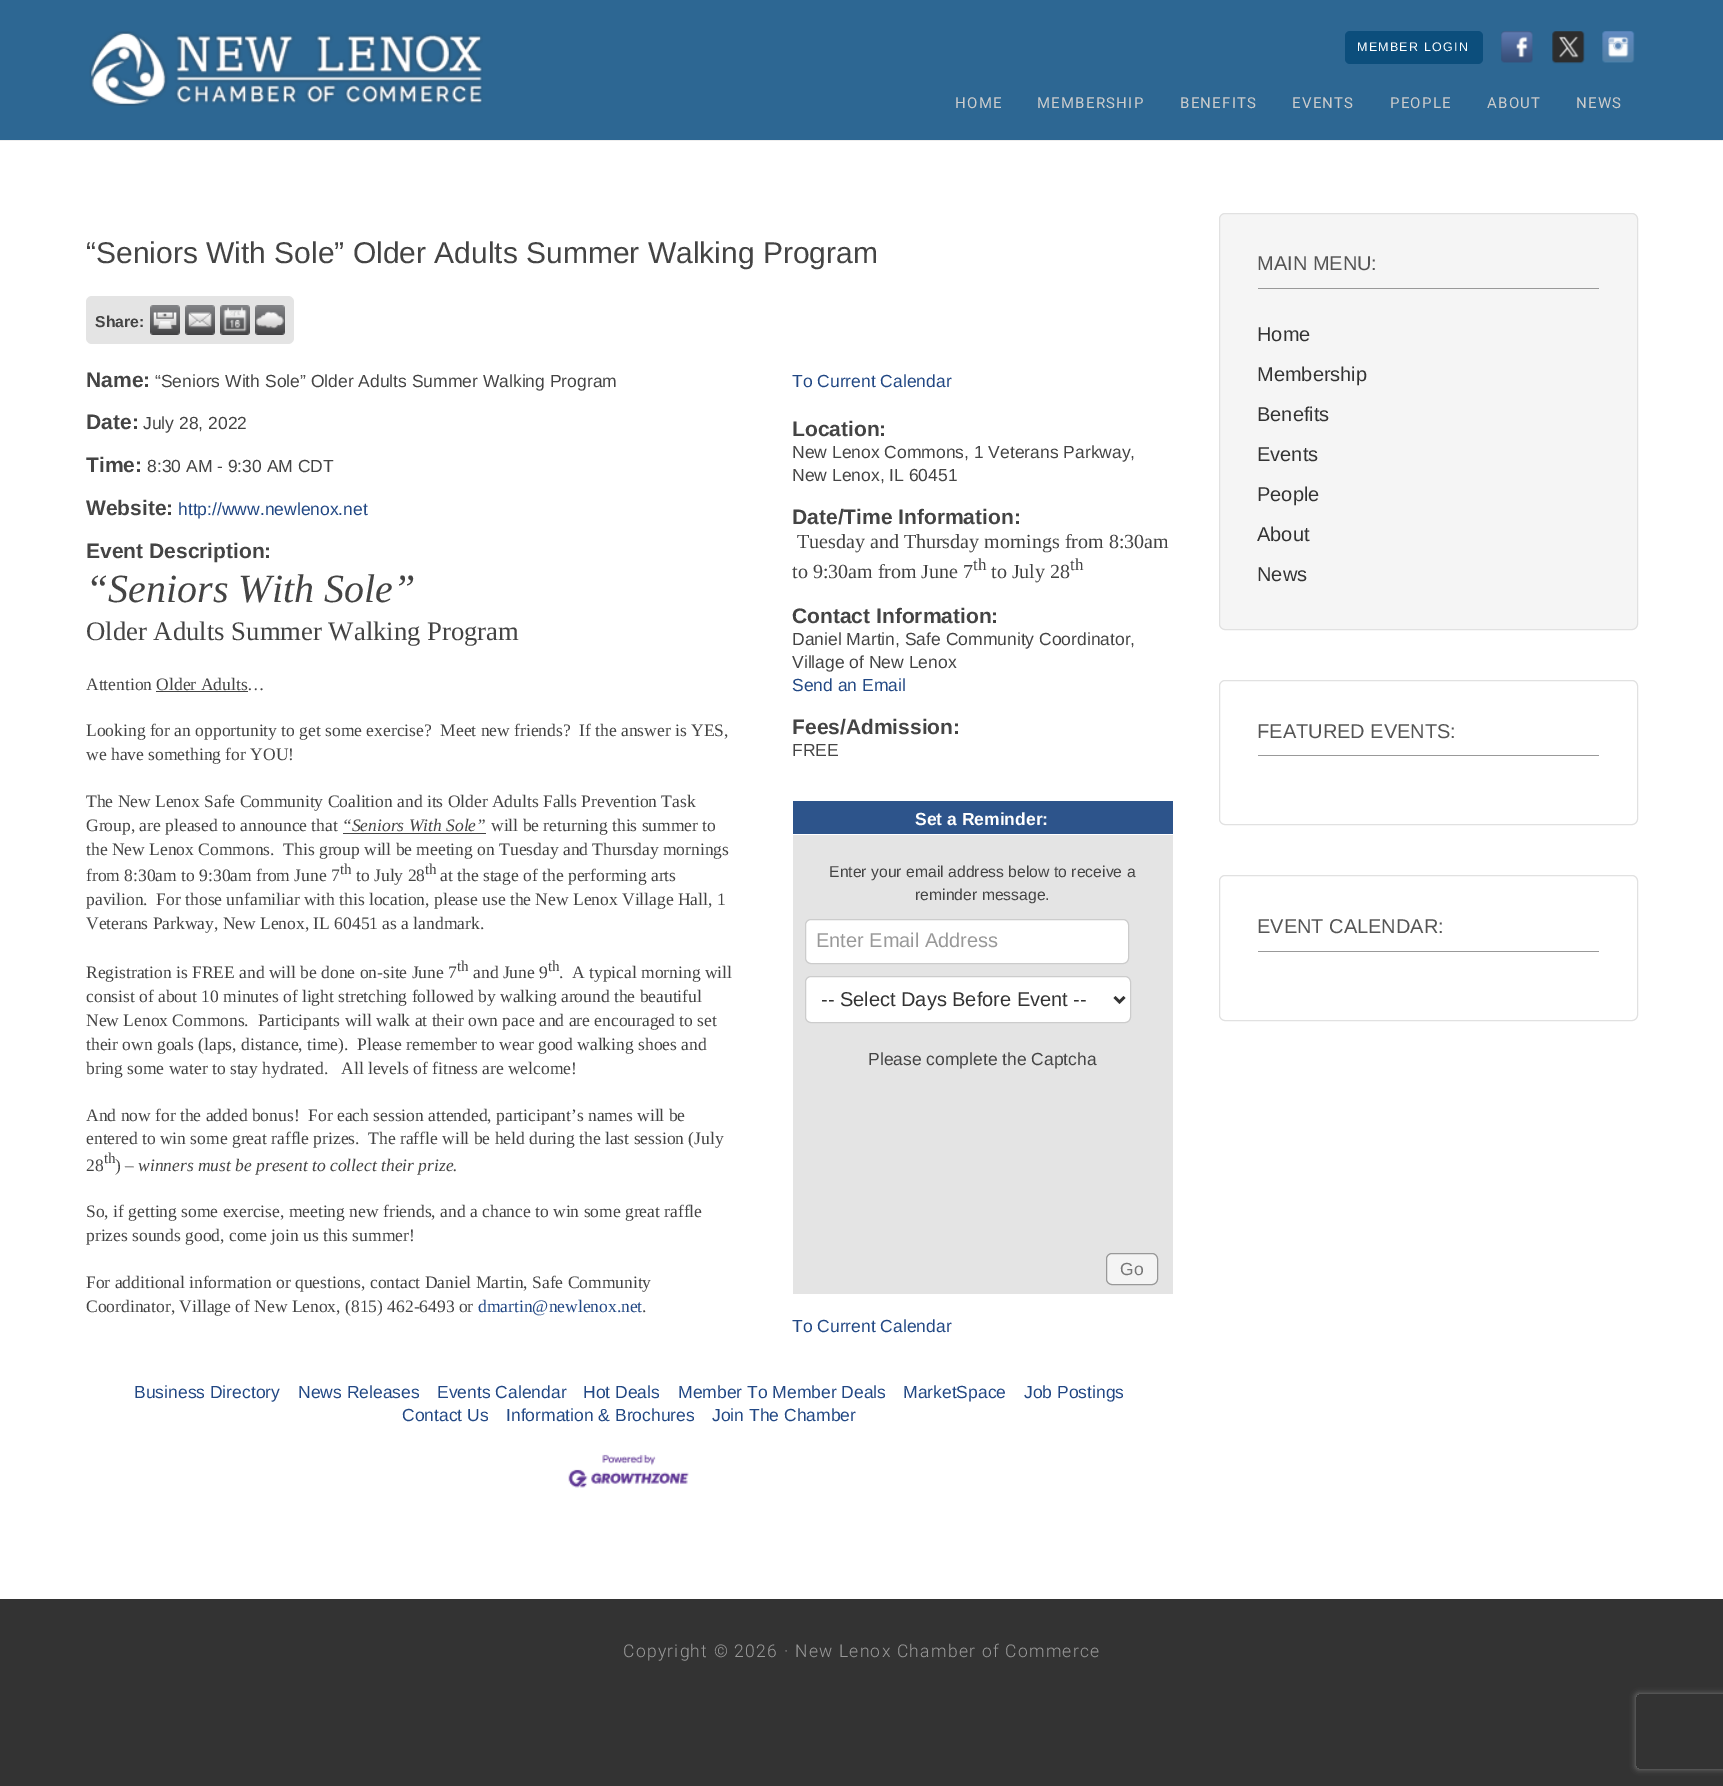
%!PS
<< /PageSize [1723 1786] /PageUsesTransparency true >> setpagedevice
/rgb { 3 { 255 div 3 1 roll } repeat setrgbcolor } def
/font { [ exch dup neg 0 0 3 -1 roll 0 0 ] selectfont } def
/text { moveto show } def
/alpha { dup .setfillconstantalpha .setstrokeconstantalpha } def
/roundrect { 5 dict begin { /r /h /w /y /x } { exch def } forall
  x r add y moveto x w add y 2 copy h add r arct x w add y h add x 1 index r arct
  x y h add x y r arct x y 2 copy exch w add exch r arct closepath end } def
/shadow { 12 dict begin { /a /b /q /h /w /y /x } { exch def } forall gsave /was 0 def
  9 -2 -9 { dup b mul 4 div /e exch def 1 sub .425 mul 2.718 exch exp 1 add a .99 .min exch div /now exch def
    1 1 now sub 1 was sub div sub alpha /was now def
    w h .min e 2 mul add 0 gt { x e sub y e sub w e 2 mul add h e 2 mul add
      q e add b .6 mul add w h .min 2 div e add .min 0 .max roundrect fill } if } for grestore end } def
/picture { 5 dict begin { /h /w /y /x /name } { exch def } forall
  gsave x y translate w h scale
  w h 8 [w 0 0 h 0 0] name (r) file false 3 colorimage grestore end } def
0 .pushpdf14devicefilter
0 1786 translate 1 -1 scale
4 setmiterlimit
51 51 51 rgb
0 0 1723 1786 rectfill
255 255 255 rgb
0 141 1723 1458 rectfill
45 103 147 rgb
0 0 1723 140 rectfill
238 238 238 rgb
0 140 1723 1 rectfill
(img_01.rgb) 89 31 394 75 picture
12 78 124 rgb
1345 31 138 33 5 roundrect fill
(img_02.rgb) 1501 31 32 32 picture
(img_03.rgb) 1552 31 33 33 picture
(img_04.rgb) 1602 31 33 32 picture
228 228 228 rgb
86 296 208 48 6 roundrect fill
(img_05.rgb) 150 305 30 30 picture
(img_06.rgb) 185 305 30 30 picture
(img_07.rgb) 220 305 30 30 picture
(img_08.rgb) 255 305 30 30 picture
68 68 68 rgb
156 691 92 1 rectfill
343 833 143 1 rectfill
228 228 228 rgb
793 835 380 459 rectfill
45 84 139 rgb
793 801 380 33 rectfill
255 255 255 rgb
805.5 919.5 323 44 5.5 roundrect gsave fill grestore
204 204 204 rgb
stroke
255 255 255 rgb
805.5 976.5 325 46 5.5 roundrect gsave fill grestore
204 204 204 rgb
stroke
51 51 51 rgb
2.5 setlinewidth
1114.5 997 moveto 5 5 rlineto 5 -5 rlineto stroke
244 244 244 rgb
1106.5 1253.5 51 31 5.5 roundrect gsave fill grestore
153 153 153 rgb
1 setlinewidth
stroke
(img_09.rgb) 568 1454 121 34 picture
245 245 245 rgb
1219.5 213.5 418 416 5.5 roundrect gsave fill grestore
225 225 225 rgb
stroke
153 153 153 rgb
1258 288 341 1 rectfill
225 225 225 rgb
1219.5 680.5 418 144 5.5 roundrect stroke
153 153 153 rgb
1258 755 341 1 rectfill
225 225 225 rgb
1219.5 875.5 418 145 5.5 roundrect stroke
153 153 153 rgb
1258 951 341 1 rectfill
gsave
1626 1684 moveto 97 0 rlineto 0 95 rlineto -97 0 rlineto closepath 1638.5 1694 moveto 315 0 rlineto 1.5 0 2.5 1 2.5 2.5 rcurveto 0 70 rlineto 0 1.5 -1 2.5 -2.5 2.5 rcurveto -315 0 rlineto -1.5 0 -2.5 -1 -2.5 -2.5 rcurveto 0 -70 rlineto 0 -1.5 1 -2.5 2.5 -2.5 rcurveto closepath eoclip newpath
128 128 128 rgb
1636 1694 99 75 2.5 3 1 shadow
grestore
/LiberationSans-Regular 12.5 font
255 255 255 rgb
1357 51 moveto 1.25 0 (MEMBER LOGIN) ashow
/Roboto-Regular 15 font
204 204 204 rgb
955 108 moveto 1.25 0 (HOME) ashow
1037 108 moveto 1.25 0 (MEMBERSHIP) ashow
1180 108 moveto 1.25 0 (BENEFITS) ashow
1292 108 moveto 1.25 0 (EVENTS) ashow
1390 108 moveto 1.25 0 (PEOPLE) ashow
1487 108 moveto 1.25 0 (ABOUT) ashow
1576 108 moveto 1.25 0 (NEWS) ashow
/LiberationSans-Regular 30 font
68 68 68 rgb
(“Seniors With Sole” Older Adults Summer Walking Program) 86 263 text
/LiberationSans-Bold 15.75 font
(Share:) 95 327 text
/LiberationSans-Bold 21 font
(Name:) 86 387 text
/LiberationSans-Regular 17.5 font
(“Seniors With Sole” Older Adults Summer Walking Program) 155 387 text
/LiberationSans-Bold 21 font
(Date:) 86 429 text
/LiberationSans-Regular 17.5 font
(July 28, 2022) 143 429 text
/LiberationSans-Bold 21 font
(Time:) 86 472 text
/LiberationSans-Regular 17.5 font
(8:30 AM - 9:30 AM CDT) 147 472 text
/LiberationSans-Bold 21 font
(Website:) 86 515 text
/LiberationSans-Regular 17.5 font
34 72 132 rgb
(http://www.newlenox.net) 178 515 text
/LiberationSans-Bold 21 font
68 68 68 rgb
(Event Description:) 86 558 text
/LiberationSerif-Italic 40 font
(“Seniors With Sole”) 86 602 text
/LiberationSerif-Regular 26.7 font
(Older Adults Summer Walking Program) 86 640 text
/LiberationSerif-Regular 17.5 font
(Attention Older Adults…) 86 690 text
(Looking for an opportunity to get some exercise?  Meet new friends?  If the answer is YES,) 86 736 text
(we have something for YOU!) 86 760 text
(The New Lenox Safe Community Coalition and its Older Adults Falls Prevention Task) 86 807 text
(Group, are pleased to announce that) 86 831 text
/LiberationSerif-Italic 17.5 font
(“Seniors With Sole”) 342 831 text
/LiberationSerif-Regular 17.5 font
(will be returning this summer to) 491 831 text
(the New Lenox Commons.  This group will be meeting on Tuesday and Thursday mornings) 86 855 text
(from 8:30am to 9:30am from June 7) 86 881 text
/LiberationSerif-Regular 15 font
(th) 340 874 text
/LiberationSerif-Regular 17.5 font
(to July 28) 356 881 text
/LiberationSerif-Regular 15 font
(th) 425 874 text
/LiberationSerif-Regular 17.5 font
(at the stage of the performing arts) 440 881 text
(pavilion.  For those unfamiliar with this location, please use the New Lenox Village Hall, 1) 86 905 text
(Veterans Parkway, New Lenox, IL 60451 as a landmark.) 86 929 text
(Registration is FREE and will be done on-site June 7) 86 978 text
/LiberationSerif-Regular 15 font
(th) 457 971 text
/LiberationSerif-Regular 17.5 font
(and June 9) 473 978 text
/LiberationSerif-Regular 15 font
(th) 548 971 text
/LiberationSerif-Regular 17.5 font
(.  A typical morning will) 559 978 text
(consist of about 10 minutes of light stretching followed by walking around the beautiful) 86 1002 text
(New Lenox Commons.  Participants will walk at their own pace and are encouraged to set) 86 1026 text
(their own goals \(laps, distance, time\).  Please remember to wear good walking shoes and) 86 1050 text
(bring some water to stay hydrated.   All levels of fitness are welcome!) 86 1074 text
(And now for the added bonus!  For each session attended, participant’s names will be) 86 1121 text
(entered to win some great raffle prizes.  The raffle will be held during the last session \(July) 86 1144 text
(28) 86 1171 text
/LiberationSerif-Regular 15 font
(th) 104 1163 text
/LiberationSerif-Regular 17.5 font
(\) –) 115 1171 text
/LiberationSerif-Italic 17.5 font
(winners must be present to collect their prize.) 138 1171 text
/LiberationSerif-Regular 17.5 font
(So, if getting some exercise, meeting new friends, and a chance to win some great raffle) 86 1217 text
(prizes sounds good, come join us this summer!) 86 1241 text
(For additional information or questions, contact Daniel Martin, Safe Community) 86 1288 text
(Coordinator, Village of New Lenox, \(815\) 462-6493 or) 86 1312 text
34 72 132 rgb
(dmartin@newlenox.net) 478 1312 text
68 68 68 rgb
(.) 642 1312 text
/LiberationSans-Regular 17.5 font
34 72 132 rgb
(To Current Calendar) 792 387 text
/LiberationSans-Bold 21 font
68 68 68 rgb
(Location:) 792 436 text
/LiberationSans-Regular 17.5 font
(New Lenox Commons, 1 Veterans Parkway,) 792 458 text
(New Lenox, IL 60451) 792 481 text
/LiberationSans-Bold 21 font
(Date/Time Information:) 792 524 text
/LiberationSerif-Regular 20 font
(Tuesday and Thursday mornings from 8:30am) 797 548 text
(to 9:30am from June 7) 792 578 text
/LiberationSerif-Regular 17 font
(th) 973 570 text
/LiberationSerif-Regular 20 font
(to July 28) 991 578 text
/LiberationSerif-Regular 17 font
(th) 1070 570 text
/LiberationSans-Bold 21 font
(Contact Information:) 792 623 text
/LiberationSans-Regular 17.5 font
(Daniel Martin, Safe Community Coordinator,) 792 645 text
(Village of New Lenox) 792 668 text
34 72 132 rgb
(Send an Email) 792 691 text
/LiberationSans-Bold 21 font
68 68 68 rgb
(Fees/Admission:) 792 734 text
/LiberationSans-Regular 17.5 font
(FREE) 792 756 text
/LiberationSans-Bold 17.5 font
255 255 255 rgb
(Set a Reminder:) 915 825 text
/LiberationSans-Regular 15.75 font
68 68 68 rgb
(Enter your email address below to receive a) 829 877 text
(reminder message.) 915 900 text
/LiberationSans-Regular 20 font
153 153 153 rgb
(Enter Email Address) 816 947 text
51 51 51 rgb
(-- Select Days Before Event --) 821 1006 text
/LiberationSans-Regular 17.5 font
68 68 68 rgb
(Please complete the Captcha) 868 1065 text
119 119 119 rgb
(Go) 1120 1275 text
34 72 132 rgb
(To Current Calendar) 792 1332 text
(Business Directory) 134 1398 text
(News Releases) 298 1398 text
(Events Calendar) 437 1398 text
(Hot Deals) 583 1398 text
(Member To Member Deals) 678 1398 text
(MarketSpace) 903 1398 text
(Job Postings) 1024 1398 text
(Contact Us) 402 1421 text
(Information & Brochures) 506 1421 text
(Join The Chamber) 712 1421 text
/LiberationSans-Regular 20 font
85 85 85 rgb
(MAIN MENU:) 1257 270 text
51 51 51 rgb
(Home) 1257 341 text
(Membership) 1257 381 text
(Benefits) 1257 421 text
(Events) 1257 461 text
(People) 1257 501 text
(About) 1257 541 text
(News) 1257 581 text
85 85 85 rgb
(FEATURED EVENTS:) 1257 738 text
(EVENT CALENDAR:) 1257 933 text
/Roboto-Light 17.5 font
153 153 153 rgb
623 1657 moveto 1.25 0 (Copyright © 2026 · New Lenox Chamber of Commerce) ashow
.poppdf14devicefilter showpage
